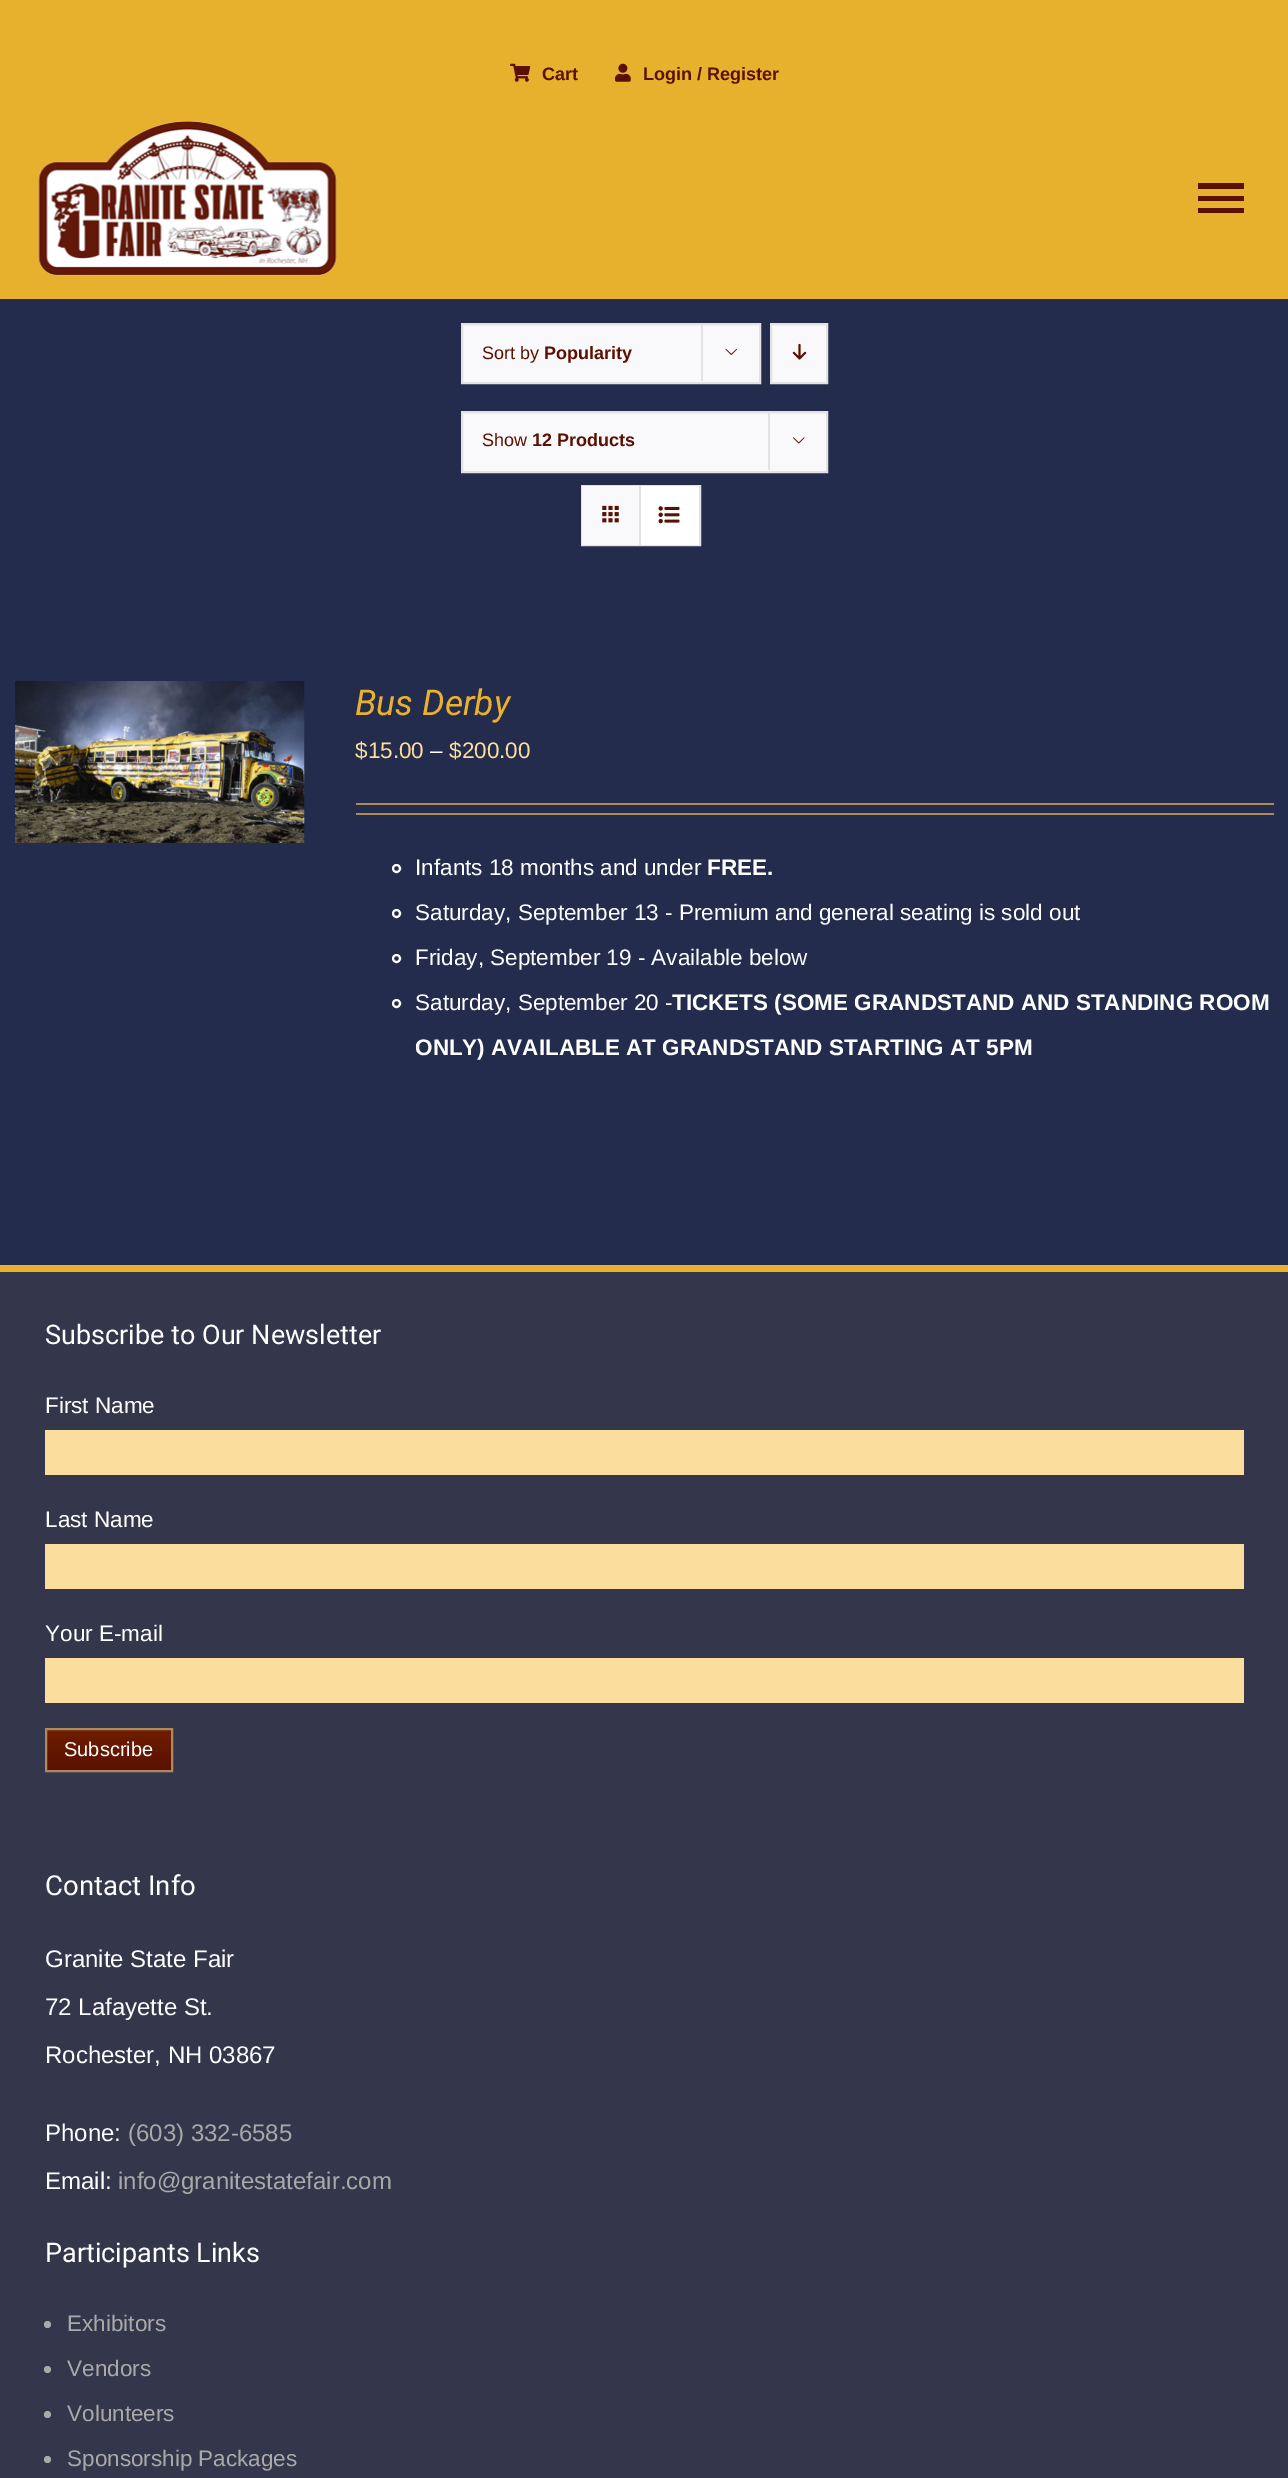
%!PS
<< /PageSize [1288 2478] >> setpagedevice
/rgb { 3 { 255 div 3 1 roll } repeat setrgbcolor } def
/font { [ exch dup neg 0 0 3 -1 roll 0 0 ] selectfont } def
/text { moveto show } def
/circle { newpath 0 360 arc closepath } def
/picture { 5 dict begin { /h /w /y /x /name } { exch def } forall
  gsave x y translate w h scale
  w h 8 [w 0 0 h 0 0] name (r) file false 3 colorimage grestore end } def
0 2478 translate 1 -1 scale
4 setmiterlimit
35 44 77 rgb
0 0 1288 2478 rectfill
232 177 45 rgb
0 0 1288 299 rectfill
(img_01.rgb) 510 63 21 19 picture
(img_02.rgb) 615 63 16 19 picture
(img_03.rgb) 38 121 299 155 picture
91 17 1 rgb
1198 183 moveto 46 0 rlineto 0 6 rlineto -46 0 rlineto closepath 1198 201 moveto 0 -5 rlineto 46 0 rlineto 0 5 rlineto closepath 1198 213 moveto 0 -5 rlineto 46 0 rlineto 0 5 rlineto closepath fill
249 249 251 rgb
462 324 moveto 298 0 rlineto 0 59 rlineto -298 0 rlineto closepath gsave fill grestore
226 226 226 rgb
2 setlinewidth
stroke
701 323 2 58 rectfill
(img_04.rgb) 725 348 12 7 picture
249 249 251 rgb
771 324 moveto 56 0 rlineto 0 59 rlineto -56 0 rlineto closepath gsave fill grestore
226 226 226 rgb
stroke
(img_05.rgb) 792 343 15 17 picture
249 249 251 rgb
462 412 moveto 365 0 rlineto 0 60 rlineto -365 0 rlineto closepath gsave fill grestore
226 226 226 rgb
stroke
768 411 2 59 rectfill
(img_06.rgb) 793 437 12 7 picture
582 486 118 59 rectstroke
249 249 251 rgb
582 486 57 59 rectfill
226 226 226 rgb
639 486 2 59 rectfill
(img_07.rgb) 602 505 17 18 picture
255 255 255 rgb
641 486 58 59 rectfill
(img_08.rgb) 658 506 22 18 picture
(img_09.rgb) 15 681 290 162 picture
174 137 93 rgb
356 803 918 2 rectfill
356 813 918 2 rectfill
255 255 255 rgb
396.5 868.5 3.5 circle stroke
396.5 913.5 3.5 circle stroke
396.5 958.5 3.5 circle stroke
396.5 1003.5 3.5 circle stroke
52 54 76 rgb
0 1272 1288 1206 rectfill
232 177 46 rgb
0 1265 1288 7 rectfill
251 221 157 rgb
45 1430 1199 45 rectfill
45 1544 1199 45 rectfill
45 1658 1199 45 rectfill
gsave 47 1730 moveto 124 0 rlineto 0 40 rlineto -124 0 rlineto closepath clip newpath
<< /ShadingType 2 /ColorSpace /DeviceRGB /Coords [109 1770 109 1730] /Extend [true true] /Function << /FunctionType 2 /Domain [0 1] /C0 [0.357 0.067 0.004] /C1 [0.427 0.114 0] /N 1 >> >> shfill grestore
174 137 93 rgb
46 1729 126 42 rectstroke
170 169 169 rgb
47.5 2324.5 3.5 circle fill
47.5 2369.5 3.5 circle fill
47.5 2414.5 3.5 circle fill
47.5 2459.5 3.5 circle fill
/LiberationSans-Bold 18 font
91 17 1 rgb
(Cart) 542 80 text
(Login / Register) 643 80 text
/LiberationSans-Regular 18 font
(Sort by) 482 359 text
/LiberationSans-Bold 18 font
(Popularity) 544 359 text
/LiberationSans-Regular 18 font
(Show) 482 446 text
/LiberationSans-Bold 18 font
(12 Products) 532 446 text
/Roboto-Italic 35.5 font
232 177 46 rgb
(Bus Derby) 355 715 text
/LiberationSans-Regular 22.5 font
251 221 157 rgb
($15.00) 355 758 text
255 255 255 rgb
(–) 430 758 text
251 221 157 rgb
($200.00) 449 758 text
255 255 255 rgb
(Infants 18 months and under) 415 875 text
/LiberationSans-Bold 22.5 font
(FREE.) 707 875 text
/LiberationSans-Regular 22.5 font
(Saturday, September 13 - Premium and general seating is sold out) 415 920 text
(Friday, September 19 - Available below) 415 965 text
(Saturday, September 20 -) 415 1010 text
/LiberationSans-Bold 22.5 font
(TICKETS \(SOME GRANDSTAND AND STANDING ROOM) 672 1010 text
(ONLY\) AVAILABLE AT GRANDSTAND STARTING AT 5PM) 415 1055 text
/Roboto-Regular 27 font
(Subscribe to Our Newsletter) 45 1344 text
/LiberationSans-Regular 22.5 font
(First Name) 45 1413 text
(Last Name) 45 1527 text
(Your E-mail) 45 1641 text
/LiberationSans-Regular 20 font
(Subscribe) 64 1756 text
/Roboto-Regular 27.5 font
(Contact Info) 45 1895 text
/LiberationSans-Regular 24 font
(Granite State Fair) 45 1967 text
(72 Lafayette St.) 45 2015 text
(Rochester, NH 03867) 45 2063 text
(Phone:) 45 2141 text
170 169 169 rgb
(\(603\) 332-6585) 128 2141 text
255 255 255 rgb
(Email:) 45 2189 text
170 169 169 rgb
(info@granitestatefair.com) 118 2189 text
/Roboto-Regular 27 font
255 255 255 rgb
(Participants Links) 45 2262 text
/LiberationSans-Regular 22.5 font
170 169 169 rgb
(Exhibitors) 67 2331 text
(Vendors) 67 2376 text
(Volunteers) 67 2421 text
(Sponsorship Packages) 67 2466 text
showpage
